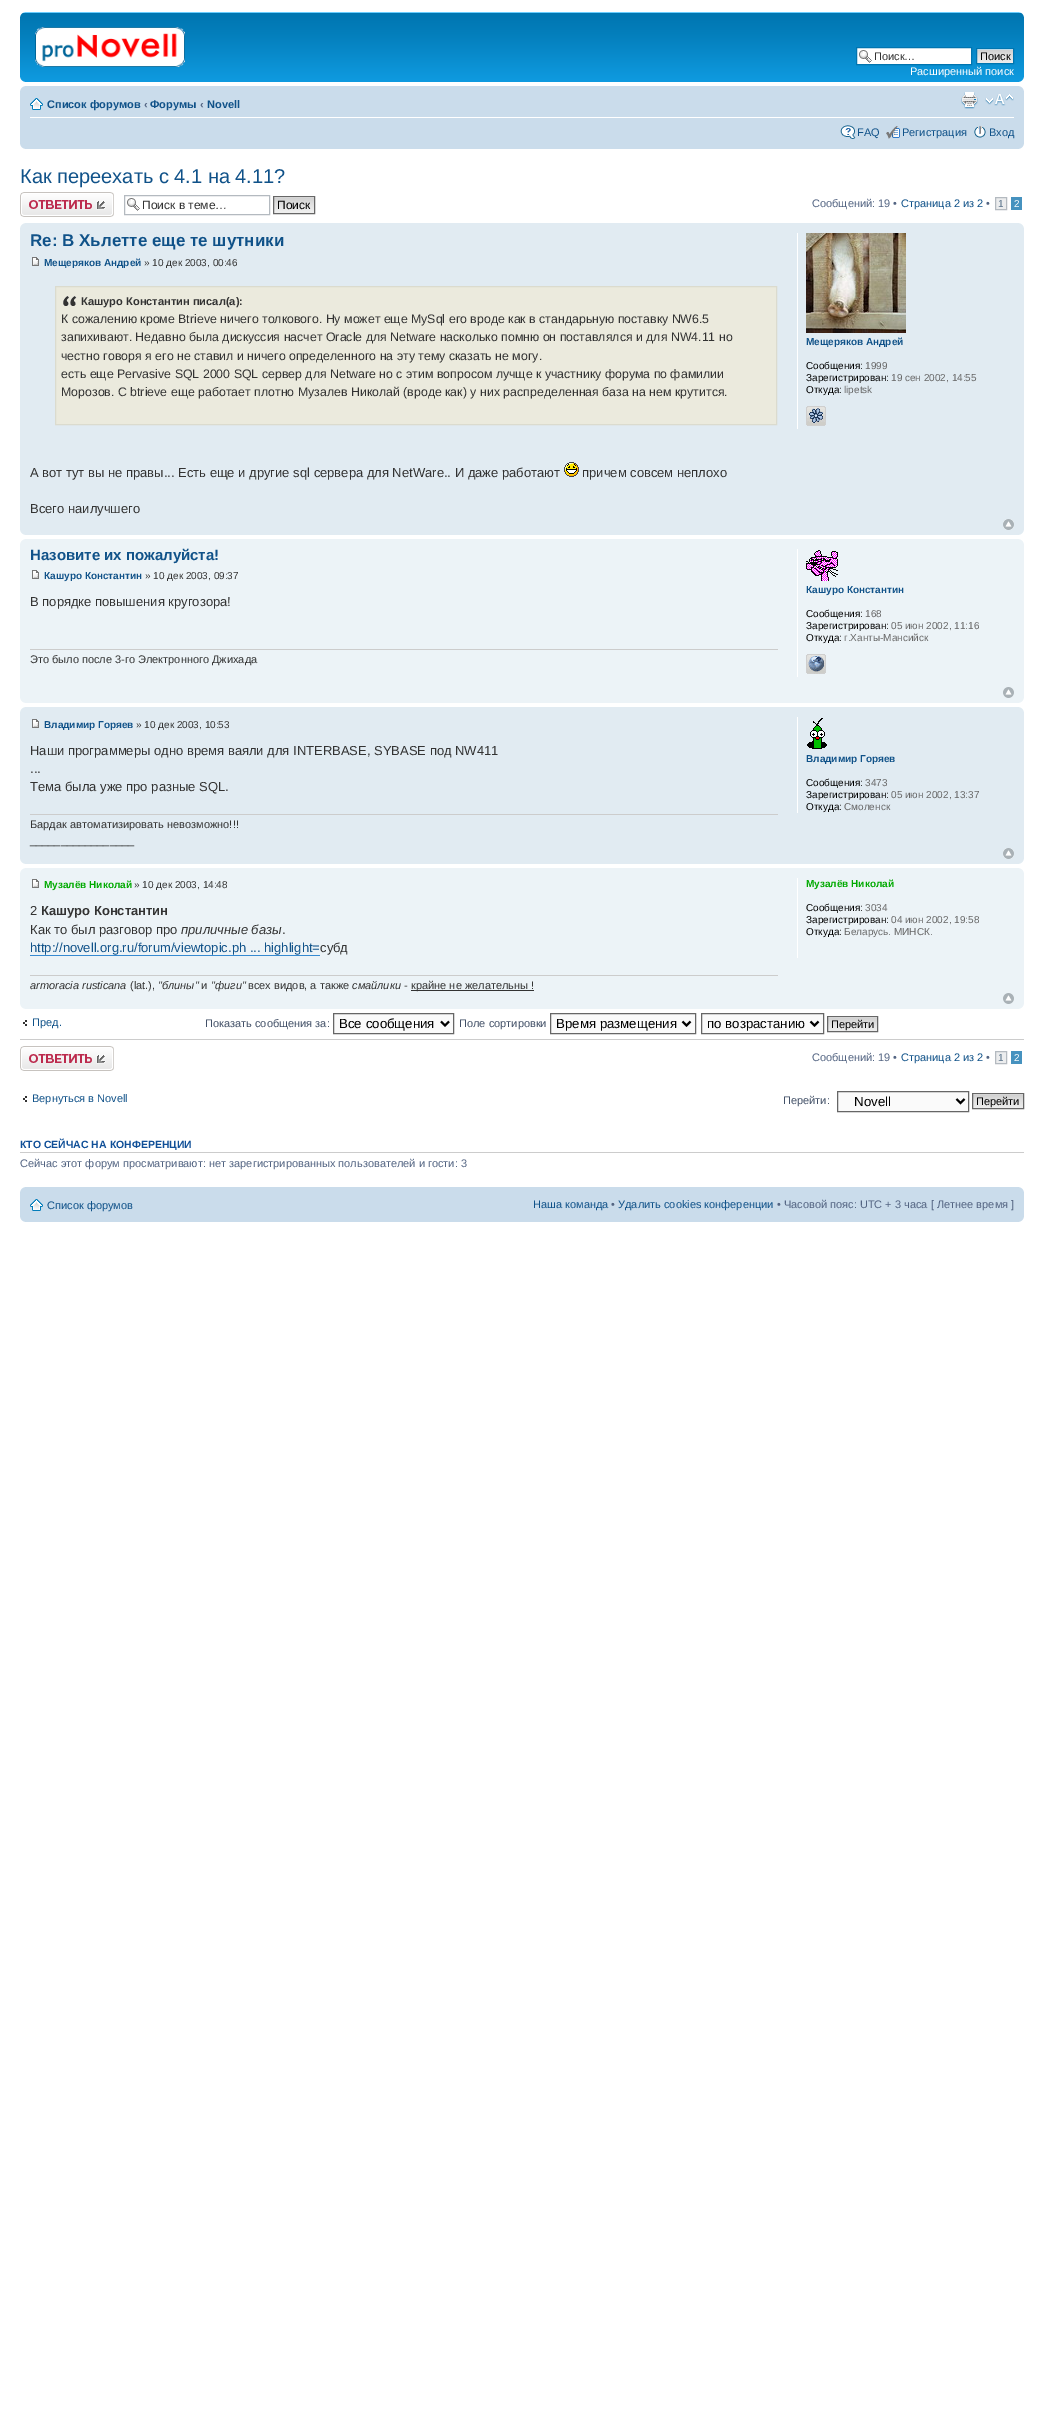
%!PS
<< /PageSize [1044 2412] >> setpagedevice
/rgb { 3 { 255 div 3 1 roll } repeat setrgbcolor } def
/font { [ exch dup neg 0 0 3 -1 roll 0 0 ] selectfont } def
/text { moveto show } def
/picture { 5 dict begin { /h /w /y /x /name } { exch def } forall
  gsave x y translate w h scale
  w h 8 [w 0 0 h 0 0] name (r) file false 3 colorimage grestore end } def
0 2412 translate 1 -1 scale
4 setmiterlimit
255 255 255 rgb
0 0 1044 2412 rectfill
(img_01.rgb) 20 12 1004 70 picture
(img_02.rgb) 20 12 5 5 picture
(img_03.rgb) 1019 12 5 5 picture
(img_04.rgb) 35 27 150 40 picture
857 48 114 16 rectfill
(img_05.rgb) 859 50 13 13 picture
0 117 176 rgb
856.5 47.5 115 17 rectstroke
(img_06.rgb) 977 49 36 14 picture
976.5 48.5 37 15 rectstroke
(img_07.rgb) 20 77 5 5 picture
(img_08.rgb) 1019 77 5 5 picture
202 220 235 rgb
20 86 1004 63 rectfill
(img_09.rgb) 20 86 5 5 picture
(img_10.rgb) 1019 86 5 5 picture
255 255 255 rgb
30 117 984 1 rectfill
(img_11.rgb) 30 98 13 12 picture
(img_12.rgb) 961 92 17 17 picture
(img_13.rgb) 985 94 29 12 picture
(img_14.rgb) 840 125 16 14 picture
(img_15.rgb) 886 126 14 13 picture
(img_16.rgb) 974 126 12 12 picture
(img_17.rgb) 20 144 5 5 picture
(img_18.rgb) 1019 144 5 5 picture
(img_19.rgb) 20 192 94 25 picture
(img_05.rgb) 127 198 13 13 picture
180 186 192 rgb
124.5 195.5 145 19 rectstroke
(img_20.rgb) 274 197 40 16 picture
102 102 102 rgb
273.5 196.5 41 17 rectstroke
236 237 238 rgb
995.5 197.5 moveto 11 0 rlineto 0 12 rlineto -11 0 rlineto closepath gsave fill grestore
180 186 192 rgb
stroke
70 146 191 rgb
1011 197 11 13 rectfill
225 235 242 rgb
20 223 1004 312 rectfill
(img_21.rgb) 20 223 5 5 picture
(img_22.rgb) 1019 223 5 5 picture
(img_23.rgb) 32 257 7 9 picture
235 234 221 rgb
56 287 720 137 rectfill
(img_24.rgb) 63 296 14 10 picture
219 219 206 rgb
55.5 286.5 721 138 rectstroke
(img_25.rgb) 564 462 15 15 picture
255 255 255 rgb
797 233 1 196 rectfill
(img_26.rgb) 806 233 100 100 picture
(img_27.rgb) 806 406 20 20 picture
(img_28.rgb) 1003 519 11 11 picture
(img_29.rgb) 20 530 5 5 picture
(img_30.rgb) 1019 530 5 5 picture
236 243 247 rgb
20 539 1004 164 rectfill
(img_31.rgb) 20 539 5 5 picture
(img_32.rgb) 1019 539 5 5 picture
(img_33.rgb) 32 570 7 9 picture
204 204 204 rgb
30 649 748 1 rectfill
255 255 255 rgb
797 549 1 128 rectfill
(img_34.rgb) 806 550 32 31 picture
(img_35.rgb) 806 654 20 20 picture
(img_36.rgb) 1003 687 11 11 picture
(img_37.rgb) 20 698 5 5 picture
(img_38.rgb) 1019 698 5 5 picture
225 235 242 rgb
20 707 1004 157 rectfill
(img_21.rgb) 20 707 5 5 picture
(img_22.rgb) 1019 707 5 5 picture
(img_23.rgb) 32 719 7 9 picture
204 204 204 rgb
30 814 748 1 rectfill
255 255 255 rgb
797 717 1 96 rectfill
(img_39.rgb) 807 718 20 31 picture
(img_28.rgb) 1003 848 11 11 picture
(img_29.rgb) 20 859 5 5 picture
(img_30.rgb) 1019 859 5 5 picture
236 243 247 rgb
20 868 1004 141 rectfill
(img_31.rgb) 20 868 5 5 picture
(img_32.rgb) 1019 868 5 5 picture
(img_33.rgb) 32 879 7 9 picture
54 138 210 rgb
30 955 290 1 rectfill
204 204 204 rgb
30 975 748 1 rectfill
51 51 51 rgb
411 990 123 1 rectfill
255 255 255 rgb
797 878 1 80 rectfill
(img_36.rgb) 1003 993 11 11 picture
(img_37.rgb) 20 1004 5 5 picture
(img_38.rgb) 1019 1004 5 5 picture
(img_40.rgb) 23 1020 4 6 picture
250 250 250 rgb
333.5 1013.5 moveto 120 0 rlineto 0 20 rlineto -120 0 rlineto closepath gsave fill grestore
102 102 102 rgb
stroke
0 0 0 rgb
2 setlinewidth
441 1021.5 moveto 4 4 rlineto 4 -4 rlineto stroke
250 250 250 rgb
550.5 1013.5 moveto 145 0 rlineto 0 20 rlineto -145 0 rlineto closepath gsave fill grestore
102 102 102 rgb
1 setlinewidth
stroke
0 0 0 rgb
2 setlinewidth
682.5 1021.5 moveto 4 4 rlineto 4 -4 rlineto stroke
250 250 250 rgb
701.5 1013.5 moveto 122 0 rlineto 0 20 rlineto -122 0 rlineto closepath gsave fill grestore
102 102 102 rgb
1 setlinewidth
stroke
0 0 0 rgb
2 setlinewidth
810.5 1021.5 moveto 4 4 rlineto 4 -4 rlineto stroke
(img_41.rgb) 828 1017 49 14 picture
102 102 102 rgb
1 setlinewidth
827.5 1016.5 50 15 rectstroke
204 204 204 rgb
20 1039 1004 1 rectfill
(img_19.rgb) 20 1046 94 25 picture
236 237 238 rgb
995.5 1051.5 moveto 11 0 rlineto 0 12 rlineto -11 0 rlineto closepath gsave fill grestore
180 186 192 rgb
stroke
70 146 191 rgb
1011 1051 11 13 rectfill
(img_40.rgb) 23 1096 4 6 picture
250 250 250 rgb
837.5 1091.5 moveto 131 0 rlineto 0 20 rlineto -131 0 rlineto closepath gsave fill grestore
102 102 102 rgb
stroke
0 0 0 rgb
2 setlinewidth
956.5 1099 moveto 4 4 rlineto 4 -4 rlineto stroke
(img_42.rgb) 973 1094 50 14 picture
102 102 102 rgb
1 setlinewidth
972.5 1093.5 51 15 rectstroke
204 204 204 rgb
20 1152 1004 1 rectfill
202 220 235 rgb
20 1187 1004 35 rectfill
(img_09.rgb) 20 1187 5 5 picture
(img_10.rgb) 1019 1187 5 5 picture
(img_11.rgb) 30 1199 13 12 picture
(img_17.rgb) 20 1217 5 5 picture
(img_18.rgb) 1019 1217 5 5 picture
/LiberationSans-Regular 11 font
51 51 51 rgb
(Поиск…) 874 60 text
0 0 0 rgb
(Поиск) 980 60 text
255 255 255 rgb
(Расширенный поиск) 910 75 text
/LiberationSans-Bold 11 font
16 82 137 rgb
(Список форумов) 47 108 text
83 100 130 rgb
(‹) 144 108 text
16 82 137 rgb
(Форумы) 150 108 text
83 100 130 rgb
(‹) 200 108 text
16 82 137 rgb
(Novell) 207 108 text
/LiberationSans-Regular 11 font
(FAQ) 857 136 text
(Регистрация) 902 136 text
(Вход) 989 136 text
/LiberationSans-Regular 20 font
(Как переехать с 4.1 на 4.11?) 20 183 text
/LiberationSans-Regular 12 font
51 51 51 rgb
(Поиск в теме…) 142 209 text
0 0 0 rgb
(Поиск) 277 209 text
/LiberationSans-Regular 11 font
83 100 130 rgb
(Сообщений: 19 •) 812 207 text
16 82 137 rgb
(Страница 2 из 2) 901 207 text
83 100 130 rgb
(•) 986 207 text
/LiberationSans-Regular 10 font
92 117 140 rgb
(1) 998 207 text
255 255 255 rgb
(2) 1014 207 text
/LiberationSans-Bold 17 font
16 82 137 rgb
(Re: В Хьлетте еще те шутники) 30 246 text
/LiberationSans-Bold 10 font
(Мещеряков Андрей) 44 266 text
/LiberationSans-Regular 10 font
51 51 51 rgb
(» 10 дек 2003, 00:46) 144 266 text
/LiberationSans-Bold 11.1 font
(Кашуро Константин писал\(а\):) 81 305 text
/LiberationSans-Regular 12.35 font
(К сожалению кроме Btrieve ничего толкового. Ну может еще MySql его вроде как в стандарьную поставку NW6.5) 61 323 text
(запихивают. Недавно была дискуссия насчет Oracle для Netware насколько помню он поставлялся и для NW4.11 но) 61 341 text
(честно говоря я его не ставил и ничего определенного на эту тему сказать не могу.) 61 360 text
(есть еще Pervasive SQL 2000 SQL сервер для Netware но с этим вопросом лучще к участнику форума по фамилии) 61 378 text
(Морозов. С btrieve еще работает плотно Музалев Николай \(вроде как\) у них распределенная база на нем крутится.) 61 396 text
/LiberationSans-Regular 13 font
(А вот тут вы не правы... Есть еще и другие sql сервера для NetWare.. И даже работают) 30 477 text
(причем совсем неплохо) 582 477 text
(Всего наилучшего) 30 513 text
/LiberationSans-Bold 10 font
16 82 137 rgb
(Мещеряков Андрей) 806 345 text
/LiberationSans-Regular 10 font
0 0 0 rgb
(Сообщения:) 806 369 text
102 102 102 rgb
(1999) 865 369 text
0 0 0 rgb
(Зарегистрирован:) 806 381 text
102 102 102 rgb
(19 сен 2002, 14:55) 891 381 text
0 0 0 rgb
(Откуда:) 806 393 text
102 102 102 rgb
(lipetsk) 844 393 text
/LiberationSans-Bold 15 font
16 82 137 rgb
(Назовите их пожалуйста!) 30 560 text
/LiberationSans-Bold 10 font
(Кашуро Константин) 44 579 text
/LiberationSans-Regular 10 font
51 51 51 rgb
(» 10 дек 2003, 09:37) 145 579 text
/LiberationSans-Regular 13 font
(В порядке повышения кругозора!) 30 606 text
/LiberationSans-Regular 11 font
(Это было после 3-го Электронного Джихада) 30 663 text
/LiberationSans-Bold 10 font
16 82 137 rgb
(Кашуро Константин) 806 593 text
/LiberationSans-Regular 10 font
0 0 0 rgb
(Сообщения:) 806 617 text
102 102 102 rgb
(168) 865 617 text
0 0 0 rgb
(Зарегистрирован:) 806 629 text
102 102 102 rgb
(05 июн 2002, 11:16) 891 629 text
0 0 0 rgb
(Откуда:) 806 641 text
102 102 102 rgb
(г.Ханты-Мансийск) 844 641 text
/LiberationSans-Bold 10 font
16 82 137 rgb
(Владимир Горяев) 44 728 text
/LiberationSans-Regular 10 font
51 51 51 rgb
(» 10 дек 2003, 10:53) 136 728 text
/LiberationSans-Regular 13 font
(Наши программеры одно время ваяли для INTERBASE, SYBASE под NW411) 30 755 text
(...) 30 773 text
(Тема была уже про разные SQL.) 30 791 text
/LiberationSans-Regular 11 font
(Бардак автоматизировать невозможно!!!) 30 828 text
(_________________) 30 844 text
/LiberationSans-Bold 10 font
16 82 137 rgb
(Владимир Горяев) 806 762 text
/LiberationSans-Regular 10 font
0 0 0 rgb
(Сообщения:) 806 786 text
102 102 102 rgb
(3473) 865 786 text
0 0 0 rgb
(Зарегистрирован:) 806 798 text
102 102 102 rgb
(05 июн 2002, 13:37) 891 798 text
0 0 0 rgb
(Откуда:) 806 810 text
102 102 102 rgb
(Смоленск) 844 810 text
/LiberationSans-Bold 10 font
0 170 0 rgb
(Музалёв Николай) 44 888 text
/LiberationSans-Regular 10 font
51 51 51 rgb
(» 10 дек 2003, 14:48) 134 888 text
/LiberationSans-Regular 13 font
(2) 30 915 text
/LiberationSans-Bold 13 font
(Кашуро Константин) 41 915 text
/LiberationSans-Regular 13 font
(Как то был разговор про) 30 934 text
/LiberationSans-Italic 13 font
(приличные базы) 181 934 text
/LiberationSans-Regular 13 font
(.) 282 934 text
16 82 137 rgb
(http://novell.org.ru/forum/viewtopic.ph ... highlight=) 30 952 text
51 51 51 rgb
(субд) 320 952 text
/LiberationSans-Italic 11 font
(armoracia rusticana) 30 989 text
/LiberationSans-Regular 11 font
(\(lat.\),) 130 989 text
/LiberationSans-Italic 11 font
("блины") 158 989 text
/LiberationSans-Regular 11 font
(и) 201 989 text
/LiberationSans-Italic 11 font
("фиги") 211 989 text
/LiberationSans-Regular 11 font
(всех видов, а также) 248 989 text
/LiberationSans-Italic 11 font
(смайлики) 352 989 text
/LiberationSans-Regular 11 font
(-) 404 989 text
(крайне не желательны !) 411 989 text
/LiberationSans-Bold 10 font
0 170 0 rgb
(Музалёв Николай) 806 887 text
/LiberationSans-Regular 10 font
0 0 0 rgb
(Сообщения:) 806 911 text
102 102 102 rgb
(3034) 865 911 text
0 0 0 rgb
(Зарегистрирован:) 806 923 text
102 102 102 rgb
(04 июн 2002, 19:58) 891 923 text
0 0 0 rgb
(Откуда:) 806 935 text
102 102 102 rgb
(Беларусь. МИНСК.) 844 935 text
/LiberationSans-Regular 11 font
16 82 137 rgb
(Пред.) 32 1026 text
66 80 103 rgb
(Показать сообщения за:) 205 1027 text
/LiberationSans-Regular 13.25 font
0 0 0 rgb
(Все сообщения) 339 1028 text
/LiberationSans-Regular 11 font
66 80 103 rgb
(Поле сортировки) 459 1027 text
/LiberationSans-Regular 13.25 font
0 0 0 rgb
(Время размещения) 556 1028 text
(по возрастанию) 707 1028 text
/LiberationSans-Regular 11 font
(Перейти) 831 1028 text
83 100 130 rgb
(Сообщений: 19 •) 812 1061 text
16 82 137 rgb
(Страница 2 из 2) 901 1061 text
83 100 130 rgb
(•) 986 1061 text
/LiberationSans-Regular 10 font
92 117 140 rgb
(1) 998 1061 text
255 255 255 rgb
(2) 1014 1061 text
/LiberationSans-Regular 11 font
16 82 137 rgb
(Вернуться в Novell) 32 1102 text
66 80 103 rgb
(Перейти:) 783 1104 text
/LiberationSans-Regular 13.25 font
0 0 0 rgb
(Novell) 854 1106 text
/LiberationSans-Regular 11 font
(Перейти) 976 1105 text
/LiberationSans-Bold 10.5 font
17 80 152 rgb
(КТО СЕЙЧАС НА КОНФЕРЕНЦИИ) 20 1148 text
/LiberationSans-Regular 11 font
83 100 130 rgb
(Сейчас этот форум просматривают: нет зарегистрированных пользователей и гости: 3) 20 1167 text
16 82 137 rgb
(Список форумов) 47 1209 text
(Наша команда) 533 1208 text
83 100 130 rgb
(•) 611 1208 text
16 82 137 rgb
(Удалить cookies конференции) 618 1208 text
83 100 130 rgb
(• Часовой пояс: UTC + 3 часа [ Летнее время ]) 777 1208 text
showpage
